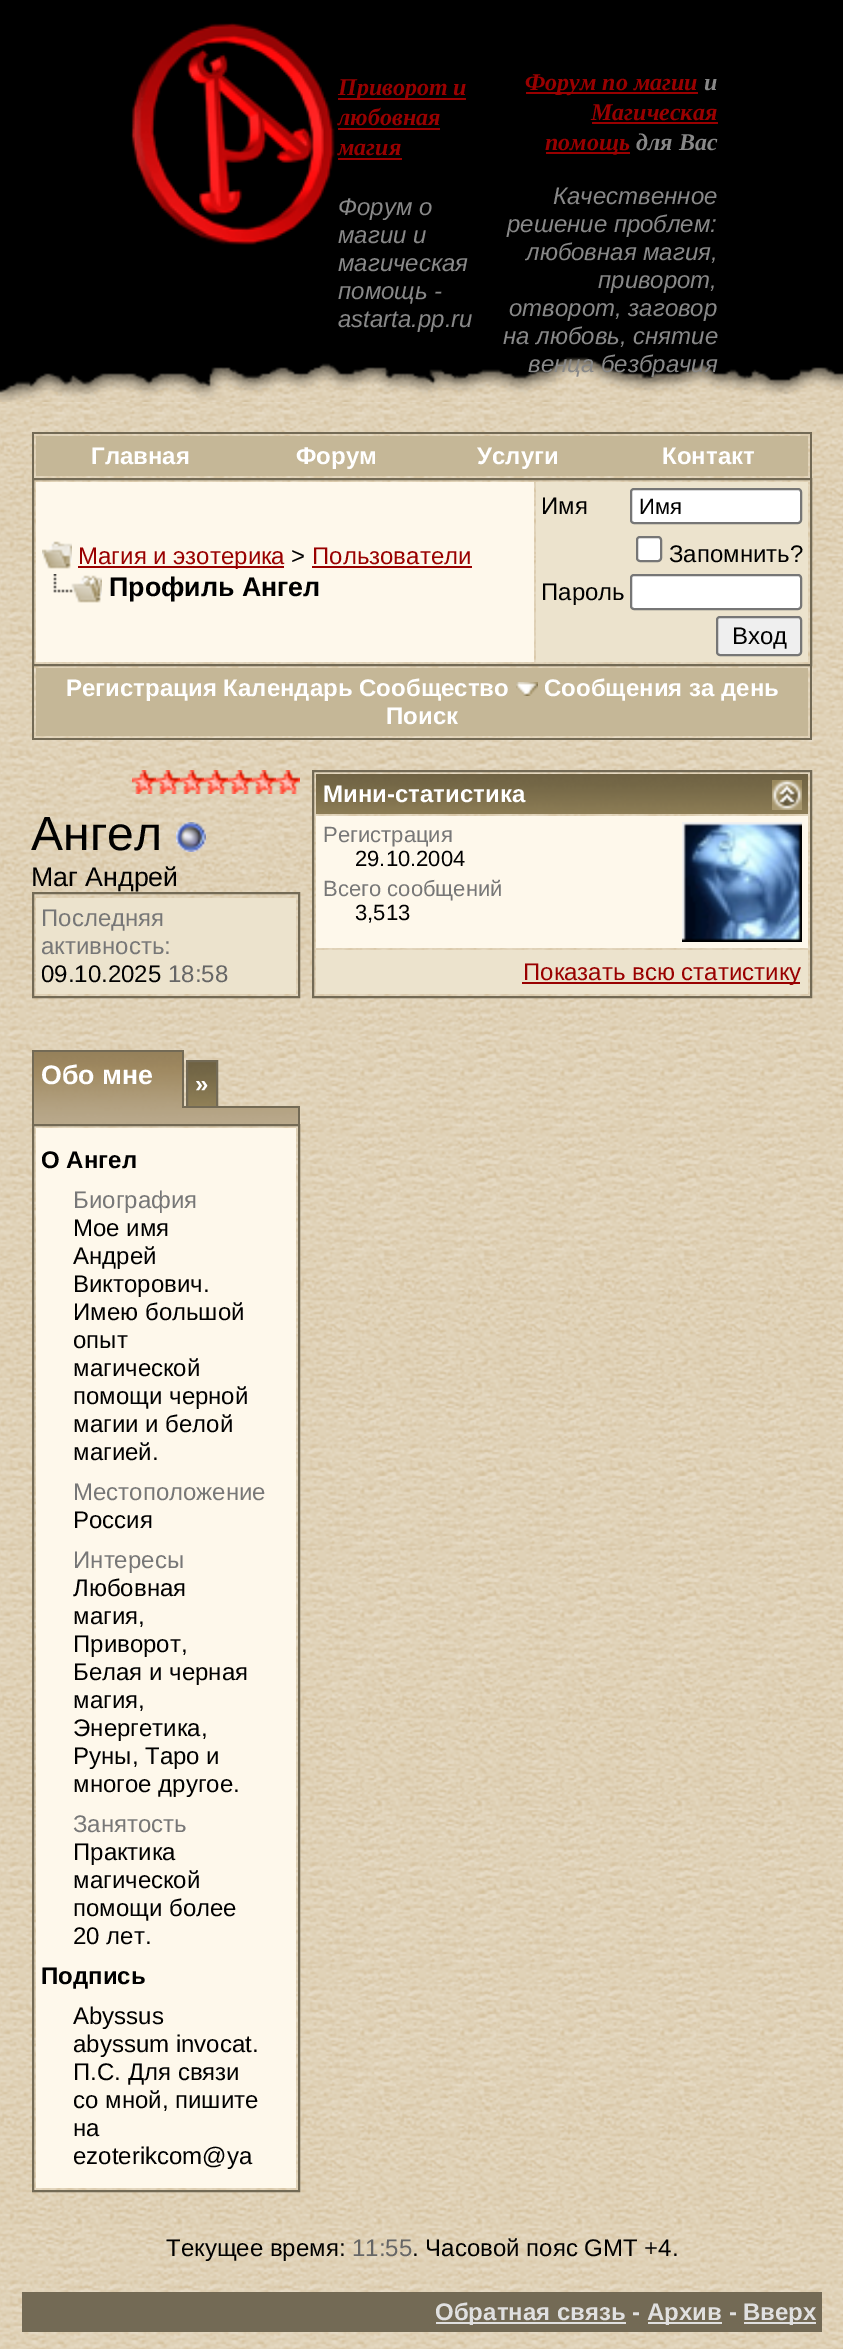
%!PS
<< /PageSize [843 2349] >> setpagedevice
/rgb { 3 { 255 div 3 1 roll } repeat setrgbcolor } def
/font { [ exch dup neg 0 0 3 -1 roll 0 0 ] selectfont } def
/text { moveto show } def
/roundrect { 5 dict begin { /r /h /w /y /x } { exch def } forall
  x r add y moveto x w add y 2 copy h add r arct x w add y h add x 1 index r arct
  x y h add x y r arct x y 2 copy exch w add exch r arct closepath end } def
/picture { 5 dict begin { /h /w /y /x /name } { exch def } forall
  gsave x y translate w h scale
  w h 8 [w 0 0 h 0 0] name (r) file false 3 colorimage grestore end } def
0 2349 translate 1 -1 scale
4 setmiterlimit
255 255 255 rgb
0 0 843 2349 rectfill
(img_01.rgb) 0 402 843 1947 picture
0 0 0 rgb
0 0 843 357 rectfill
(img_02.rgb) 0 357 843 45 picture
(img_03.rgb) 130 22 205 223 picture
153 0 0 rgb
338 98 128 2 rectfill
338 128 102 2 rectfill
338 158 64 2 rectfill
526 92 172 2 rectfill
592 122 126 2 rectfill
546 152 84 2 rectfill
115 106 85 rgb
32 432 780 2 rectfill
810 432 2 46 rectfill
32 432 2 46 rectfill
197 183 151 rgb
36 436 772 40 rectfill
115 106 85 rgb
2 setlinewidth
33 479 778 186 rectstroke
254 248 235 rgb
36 482 498 180 rectfill
(img_04.rgb) 42 541 30 28 picture
153 0 0 rgb
78 566 206 2 rectfill
312 566 160 2 rectfill
(img_05.rgb) 53 574 49 29 picture
236 227 205 rgb
536 482 272 180 rectfill
255 255 255 rgb
631 489 170 34 3 roundrect gsave fill grestore
118 118 118 rgb
stroke
255 255 255 rgb
637 537 24 24 3 roundrect gsave fill grestore
118 118 118 rgb
stroke
255 255 255 rgb
631 575 170 34 3 roundrect gsave fill grestore
118 118 118 rgb
stroke
239 239 239 rgb
717 617 84 38 3 roundrect gsave fill grestore
118 118 118 rgb
stroke
115 106 85 rgb
810 666 2 74 rectfill
32 738 780 2 rectfill
32 666 2 74 rectfill
197 183 151 rgb
36 668 772 68 rectfill
(img_06.rgb) 516 682 22 14 picture
(img_07.rgb) 132 770 24 24 picture
(img_08.rgb) 156 770 24 24 picture
(img_09.rgb) 180 770 24 24 picture
(img_10.rgb) 204 770 24 24 picture
(img_11.rgb) 228 770 24 24 picture
(img_12.rgb) 252 770 24 24 picture
(img_13.rgb) 276 770 24 24 picture
(img_14.rgb) 176 822 30 30 picture
115 106 85 rgb
33 893 266 104 rectstroke
236 227 205 rgb
36 898 260 96 rectfill
(img_15.rgb) 34 1052 148 56 picture
115 106 85 rgb
32 1050 152 2 rectfill
182 1050 2 58 rectfill
32 1106 2 18 rectfill
32 1050 2 58 rectfill
(img_16.rgb) 188 1062 28 44 picture
184 1106 116 2 rectfill
187 1061 30 46 rectstroke
(img_17.rgb) 34 1108 264 16 picture
298 1106 2 18 rectfill
33 1125 266 1066 rectstroke
254 248 235 rgb
36 1128 260 1060 rectfill
115 106 85 rgb
313 771 498 226 rectstroke
(img_18.rgb) 316 774 492 40 picture
(img_19.rgb) 772 780 30 30 picture
254 248 235 rgb
316 816 492 132 rectfill
(img_20.rgb) 682 822 120 120 picture
236 227 205 rgb
316 950 492 44 rectfill
153 0 0 rgb
522 982 278 2 rectfill
115 106 85 rgb
22 2292 800 40 rectfill
224 224 224 rgb
436 2322 190 2 rectfill
648 2322 74 2 rectfill
744 2322 72 2 rectfill
/LiberationSerif-BoldItalic 24 font
153 0 0 rgb
(Приворот и) 338 95 text
(любовная) 338 125 text
(магия) 338 155 text
/LiberationSans-Italic 24 font
136 136 136 rgb
(Форум о) 338 215 text
(магии и) 338 243 text
(магическая) 338 271 text
(помощь -) 338 299 text
(astarta.pp.ru) 338 327 text
/LiberationSerif-BoldItalic 24 font
153 0 0 rgb
(Форум по магии) 525 90 text
136 136 136 rgb
(и) 704 90 text
153 0 0 rgb
(Магическая) 591 120 text
(помощь) 545 150 text
136 136 136 rgb
(для Вас) 636 150 text
/LiberationSans-Italic 24 font
(Качественное) 553 204 text
(решение проблем:) 507 232 text
(любовная магия,) 526 260 text
(приворот,) 598 288 text
(отворот, заговор) 509 316 text
(на любовь, снятие) 503 344 text
(венца безбрачия) 528 372 text
/LiberationSans-Bold 24 font
255 255 255 rgb
(Главная) 91 464 text
(Форум) 296 464 text
(Услуги) 477 464 text
(Контакт) 662 464 text
/LiberationSans-Regular 24 font
153 0 0 rgb
(Магия и эзотерика) 78 564 text
0 0 0 rgb
(>) 291 564 text
153 0 0 rgb
(Пользователи) 312 564 text
/LiberationSans-Bold 26.75 font
0 0 0 rgb
(Профиль Ангел) 109 596 text
/LiberationSans-Regular 24 font
(Имя) 541 514 text
/LiberationSans-Regular 22 font
(Имя) 639 514 text
/LiberationSans-Regular 24 font
(Запомнить?) 669 562 text
(Пароль) 541 600 text
(Вход) 732 644 text
/LiberationSans-Bold 24 font
255 255 255 rgb
(Регистрация Календарь Сообщество) 66 696 text
(Сообщения за день) 544 696 text
(Поиск) 386 724 text
/LiberationSans-Regular 48 font
0 0 0 rgb
(Ангел) 31 850 text
/LiberationSans-Regular 26.75 font
(Маг Андрей) 31 886 text
/LiberationSans-Regular 24 font
119 119 119 rgb
(Последняя) 41 926 text
(активность:) 41 954 text
0 0 0 rgb
(09.10.2025) 41 982 text
102 102 102 rgb
(18:58) 168 982 text
/LiberationSans-Bold 26.75 font
255 255 255 rgb
(Обо мне) 41 1084 text
/LiberationSans-Bold 24 font
(») 195 1092 text
0 0 0 rgb
(О Ангел) 41 1168 text
/LiberationSans-Regular 24 font
119 119 119 rgb
(Биография) 73 1208 text
0 0 0 rgb
(Мое имя) 73 1236 text
(Андрей) 73 1264 text
(Викторович.) 73 1292 text
(Имею большой) 73 1320 text
(опыт) 73 1348 text
(магической) 73 1376 text
(помощи черной) 73 1404 text
(магии и белой) 73 1432 text
(магией.) 73 1460 text
119 119 119 rgb
(Местоположение) 73 1500 text
0 0 0 rgb
(Россия) 73 1528 text
119 119 119 rgb
(Интересы) 73 1568 text
0 0 0 rgb
(Любовная) 73 1596 text
(магия,) 73 1624 text
(Приворот,) 73 1652 text
(Белая и черная) 73 1680 text
(магия,) 73 1708 text
(Энергетика,) 73 1736 text
(Руны, Таро и) 73 1764 text
(многое другое.) 73 1792 text
119 119 119 rgb
(Занятость) 73 1832 text
0 0 0 rgb
(Практика) 73 1860 text
(магической) 73 1888 text
(помощи более) 73 1916 text
(20 лет.) 73 1944 text
/LiberationSans-Bold 24 font
(Подпись) 41 1984 text
/LiberationSans-Regular 24 font
(Abyssus) 73 2024 text
(abyssum invocat.) 73 2052 text
(П.С. Для связи) 73 2080 text
(со мной, пишите) 73 2108 text
(на) 73 2136 text
(ezoterikcom@ya) 73 2164 text
/LiberationSans-Bold 24 font
255 255 255 rgb
(Мини-статистика) 323 802 text
/LiberationSans-Regular 22 font
119 119 119 rgb
(Регистрация) 323 842 text
0 0 0 rgb
(29.10.2004) 355 866 text
119 119 119 rgb
(Всего сообщений) 323 896 text
0 0 0 rgb
(3,513) 355 920 text
/LiberationSans-Regular 24 font
153 0 0 rgb
(Показать всю статистику) 523 980 text
0 0 0 rgb
(Текущее время:) 166 2256 text
102 102 102 rgb
(11:55) 352 2256 text
0 0 0 rgb
(. Часовой пояс GMT +4.) 412 2256 text
/LiberationSans-Bold 24 font
224 224 224 rgb
(Обратная связь -) 435 2320 text
(Архив -) 647 2320 text
(Вверх) 743 2320 text
showpage
